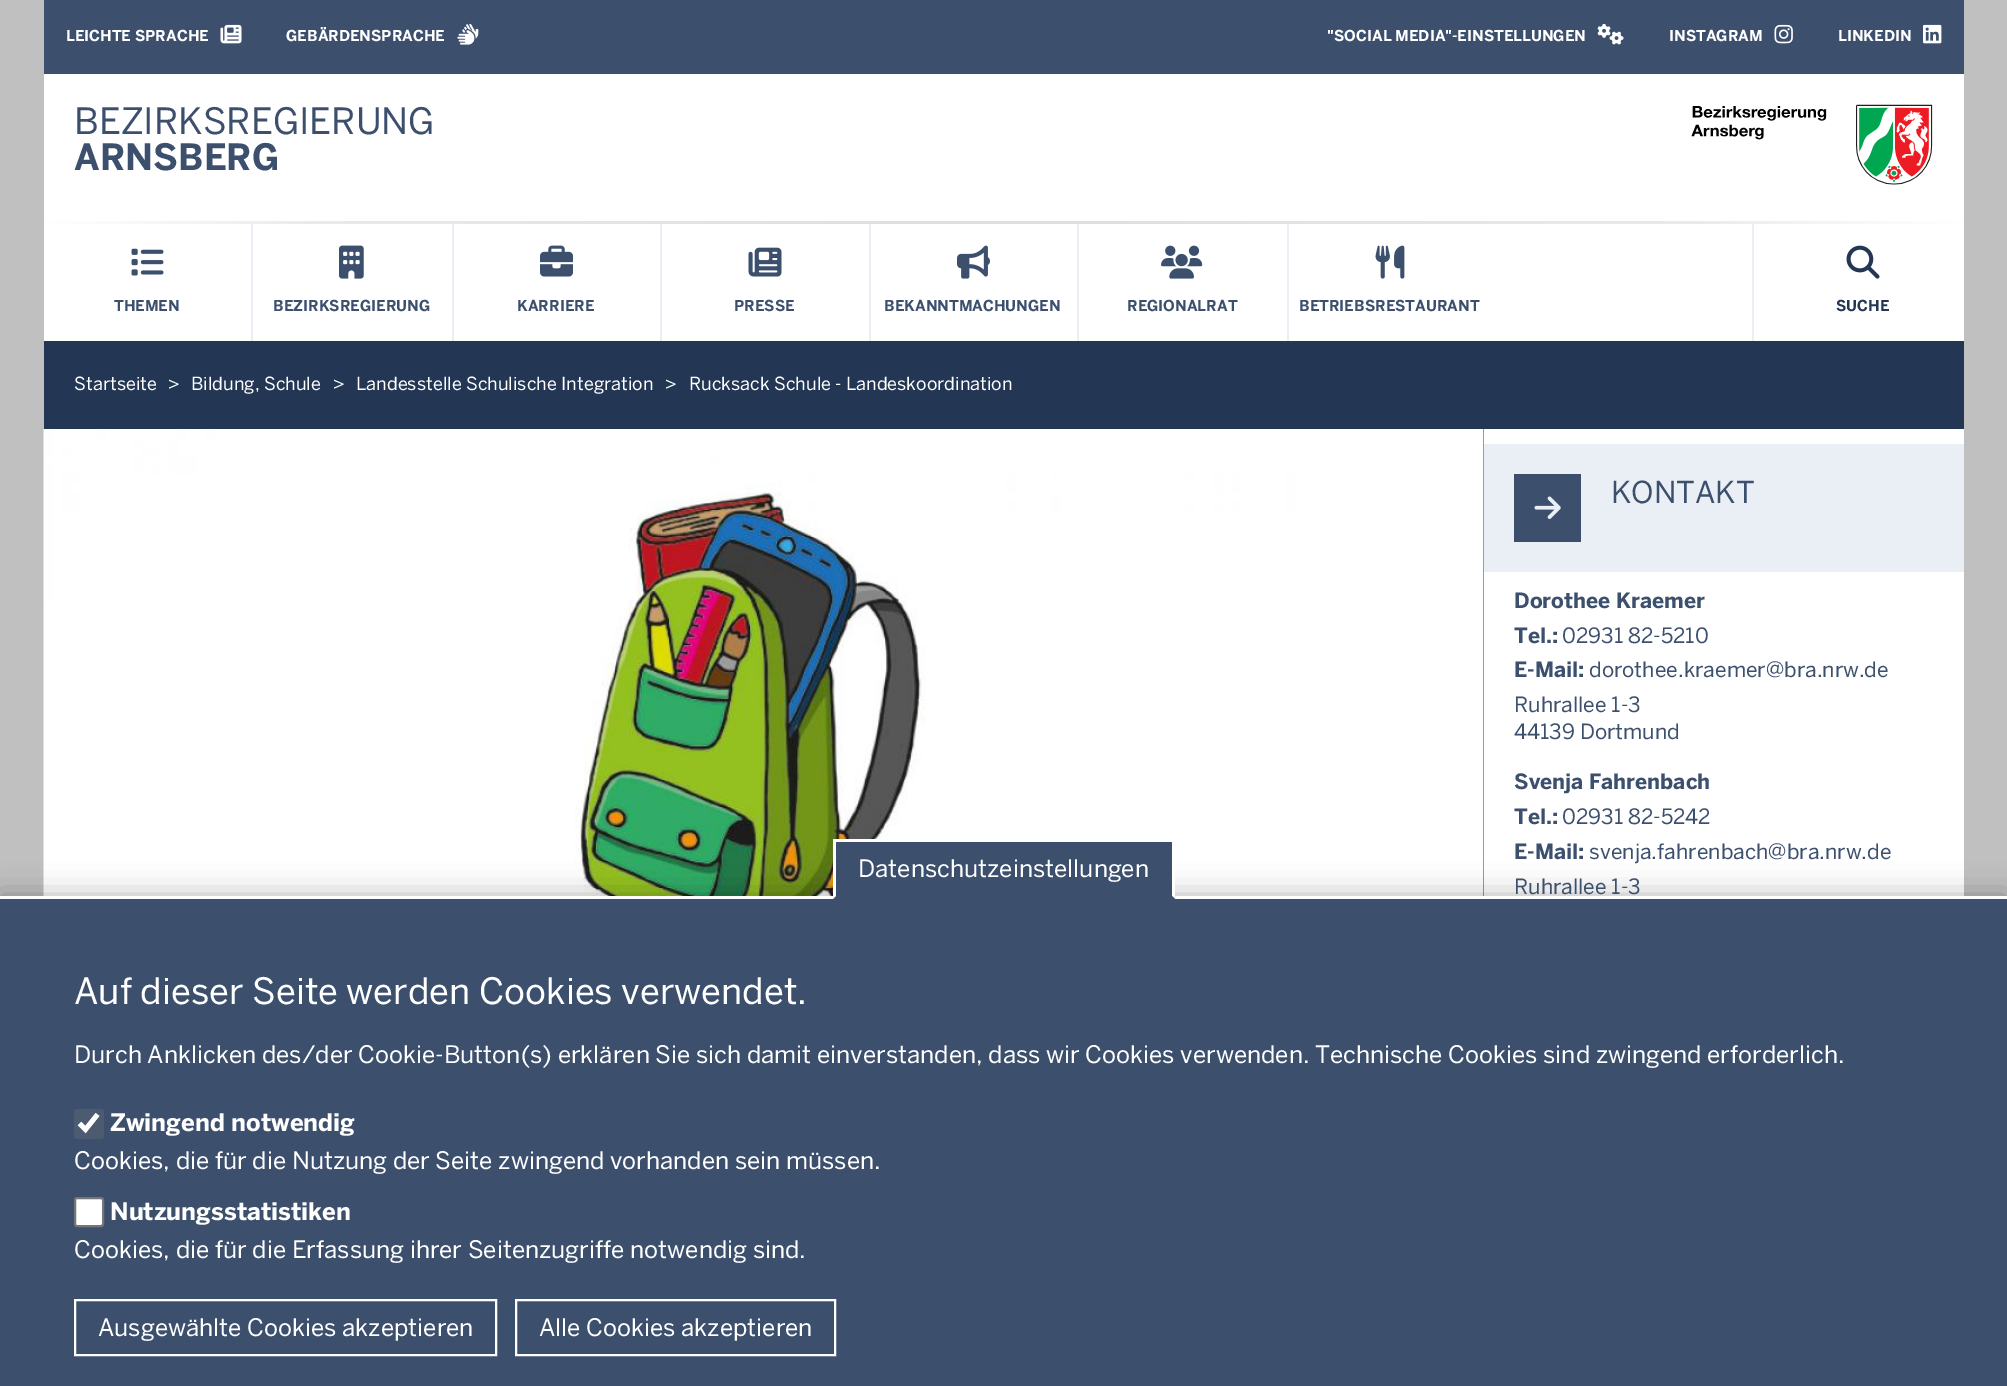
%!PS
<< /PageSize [2007 1386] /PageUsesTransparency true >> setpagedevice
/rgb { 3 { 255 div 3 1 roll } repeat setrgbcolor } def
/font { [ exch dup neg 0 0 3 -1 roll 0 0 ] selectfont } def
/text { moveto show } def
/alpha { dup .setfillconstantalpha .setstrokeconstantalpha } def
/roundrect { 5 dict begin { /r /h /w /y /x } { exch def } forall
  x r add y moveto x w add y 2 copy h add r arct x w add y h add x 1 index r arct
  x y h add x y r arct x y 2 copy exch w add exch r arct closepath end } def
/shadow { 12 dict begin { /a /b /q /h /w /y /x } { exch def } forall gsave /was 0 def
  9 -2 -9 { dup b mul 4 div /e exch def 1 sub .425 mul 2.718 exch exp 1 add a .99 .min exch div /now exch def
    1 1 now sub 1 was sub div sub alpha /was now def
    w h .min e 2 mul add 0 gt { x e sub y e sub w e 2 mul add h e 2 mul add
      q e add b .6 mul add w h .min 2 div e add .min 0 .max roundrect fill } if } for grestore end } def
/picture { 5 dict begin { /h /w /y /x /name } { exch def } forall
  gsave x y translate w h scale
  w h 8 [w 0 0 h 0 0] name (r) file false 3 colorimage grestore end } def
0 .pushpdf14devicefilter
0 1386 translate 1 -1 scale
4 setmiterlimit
192 192 192 rgb
0 0 2007 1386 rectfill
255 255 255 rgb
44 74 1920 147 rectfill
60 80 110 rgb
44 0 1920 74 rectfill
(img_01.rgb) 220 24 22 20 picture
(img_02.rgb) 457 23 22 22 picture
(img_03.rgb) 1597 23 27 22 picture
(img_04.rgb) 1774 24 19 20 picture
(img_05.rgb) 1923 24 19 20 picture
(img_06.rgb) 1691 104 242 81 picture
gsave 44 221 moveto 1920 0 rlineto 0 3 rlineto -1920 0 rlineto closepath clip newpath
<< /ShadingType 2 /ColorSpace /DeviceRGB /Coords [44 281 1964 280] /Extend [true true] /Function << /FunctionType 3 /Domain [0 1] /Functions [<< /FunctionType 2 /Domain [0 1] /C0 [1 1 1] /C1 [0.914 0.914 0.914] /N 1 >> << /FunctionType 2 /Domain [0 1] /C0 [0.914 0.914 0.914] /C1 [0.871 0.871 0.871] /N 1 >> << /FunctionType 2 /Domain [0 1] /C0 [0.871 0.871 0.871] /C1 [0.914 0.914 0.914] /N 1 >> << /FunctionType 2 /Domain [0 1] /C0 [0.914 0.914 0.914] /C1 [1 1 1] /N 1 >>] /Bounds [0.15 0.5 0.85] /Encode [0 1 0 1 0 1 0 1] >> >> shfill grestore
255 255 255 rgb
44 224 1920 117 rectfill
234 239 246 rgb
251 224 2 117 rectfill
(img_07.rgb) 131 248 33 28 picture
452 224 2 117 rectfill
(img_08.rgb) 339 245 25 34 picture
660 224 2 117 rectfill
(img_09.rgb) 540 245 33 32 picture
869 224 2 117 rectfill
(img_10.rgb) 748 247 34 30 picture
1077 224 2 117 rectfill
(img_11.rgb) 957 245 33 34 picture
1287 224 2 117 rectfill
(img_12.rgb) 1161 245 42 34 picture
(img_13.rgb) 1375 245 30 34 picture
1752 224 2 117 rectfill
(img_14.rgb) 1846 245 34 34 picture
255 255 255 rgb
1484 429 480 467 rectfill
35 55 85 rgb
44 341 1920 88 rectfill
1483 429 1 467 rectfill
(img_15.rgb) 43 429 1441 467 picture
234 239 246 rgb
1484 444 480 128 rectfill
60 80 110 rgb
1514 474 67 68 rectfill
(img_16.rgb) 1534 496 27 23 picture
0 0 0 rgb
0 896 2007 490 0 15 0.3 shadow
255 255 255 rgb
0 896 2007 3 rectfill
60 80 110 rgb
833 842 342 57 rectfill
255 255 255 rgb
833 839 47 3 rectfill
1175 839 moveto 0 60 rlineto -3 -3 rlineto 0 -54 rlineto closepath fill
60 80 110 rgb
1175 899 moveto -342 0 rlineto 3 -3 rlineto 336 0 rlineto closepath fill
255 255 255 rgb
833 899 moveto 0 -60 rlineto 3 3 rlineto 0 54 rlineto closepath fill
60 80 110 rgb
0 899 2007 487 rectfill
77 91 112 rgb
74 1109 30 30 3 roundrect fill
255 255 255 rgb
4.8 setlinewidth
79.5 1123.5 moveto 6 6 rlineto 12 -15 rlineto stroke
75 1198 28 28 2 roundrect gsave fill grestore
118 118 118 rgb
2 setlinewidth
stroke
255 255 255 rgb
75 1300 421 55 rectstroke
516 1300 319 55 rectstroke
/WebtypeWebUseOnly-Bold 15 font
(LEICHTE SPRACHE) 66 41 text
(GEBÄRDENSPRACHE) 286 41 text
("SOCIAL MEDIA"-EINSTELLUNGEN) 1327 41 text
(INSTAGRAM) 1669 41 text
(LINKEDIN) 1838 41 text
/WebtypeWebUseOnly-Regular 36 font
60 80 110 rgb
(BEZIRKSREGIERUNG) 74 134 text
/WebtypeWebUseOnly-Bold 36 font
(ARNSBERG) 74 170 text
/WebtypeWebUseOnly-Bold 15 font
(THEMEN) 114 311 text
(BEZIRKSREGIERUNG) 273 311 text
(KARRIERE) 517 311 text
(PRESSE) 734 311 text
(BEKANNTMACHUNGEN) 884 311 text
(REGIONALRAT) 1127 311 text
(BETRIEBSRESTAURANT) 1299 311 text
35 55 85 rgb
(SUCHE) 1836 311 text
/WebtypeWebUseOnly-Regular 18 font
255 255 255 rgb
(Startseite) 74 390 text
(>) 168 390 text
(Bildung, Schule) 191 390 text
(>) 333 390 text
(Landesstelle Schulische Integration) 356 390 text
(>) 665 390 text
(Rucksack Schule - Landeskoordination) 689 390 text
/WebtypeWebUseOnly-Regular 30 font
60 80 110 rgb
(KONTAKT) 1611 503 text
/WebtypeWebUseOnly-Bold 21 font
(Dorothee Kraemer) 1514 608 text
(Tel.:) 1514 643 text
/WebtypeWebUseOnly-Regular 21 font
(02931 82-5210) 1562 643 text
/WebtypeWebUseOnly-Bold 21 font
(E-Mail:) 1514 677 text
/WebtypeWebUseOnly-Regular 21 font
(dorothee.kraemer@bra.nrw.de) 1589 677 text
(Ruhrallee 1-3) 1514 712 text
(44139 Dortmund) 1514 739 text
/WebtypeWebUseOnly-Bold 21 font
(Svenja Fahrenbach) 1514 789 text
(Tel.:) 1514 824 text
/WebtypeWebUseOnly-Regular 21 font
(02931 82-5242) 1562 824 text
/WebtypeWebUseOnly-Bold 21 font
(E-Mail:) 1514 859 text
/WebtypeWebUseOnly-Regular 21 font
(svenja.fahrenbach@bra.nrw.de) 1589 859 text
(Ruhrallee 1-3) 1514 894 text
/WebtypeWebUseOnly-Regular 24 font
255 255 255 rgb
(Datenschutzeinstellungen) 858 877 text
/WebtypeWebUseOnly-Regular 36 font
(Auf dieser Seite werden Cookies verwendet.) 74 1004 text
/WebtypeWebUseOnly-Regular 24 font
(Durch Anklicken des/der Cookie-Button\(s\) erklären Sie sich damit einverstanden, dass wir Cookies verwenden. Technische Cookies sind zwingend erforderlich.) 74 1063 text
/WebtypeWebUseOnly-Bold 24 font
(Zwingend notwendig) 110 1131 text
/WebtypeWebUseOnly-Regular 24 font
(Cookies, die für die Nutzung der Seite zwingend vorhanden sein müssen.) 74 1169 text
/WebtypeWebUseOnly-Bold 24 font
(Nutzungsstatistiken) 110 1220 text
/WebtypeWebUseOnly-Regular 24 font
(Cookies, die für die Erfassung ihrer Seitenzugriffe notwendig sind.) 74 1258 text
(Ausgewählte Cookies akzeptieren) 98 1336 text
(Alle Cookies akzeptieren) 539 1336 text
.poppdf14devicefilter showpage
